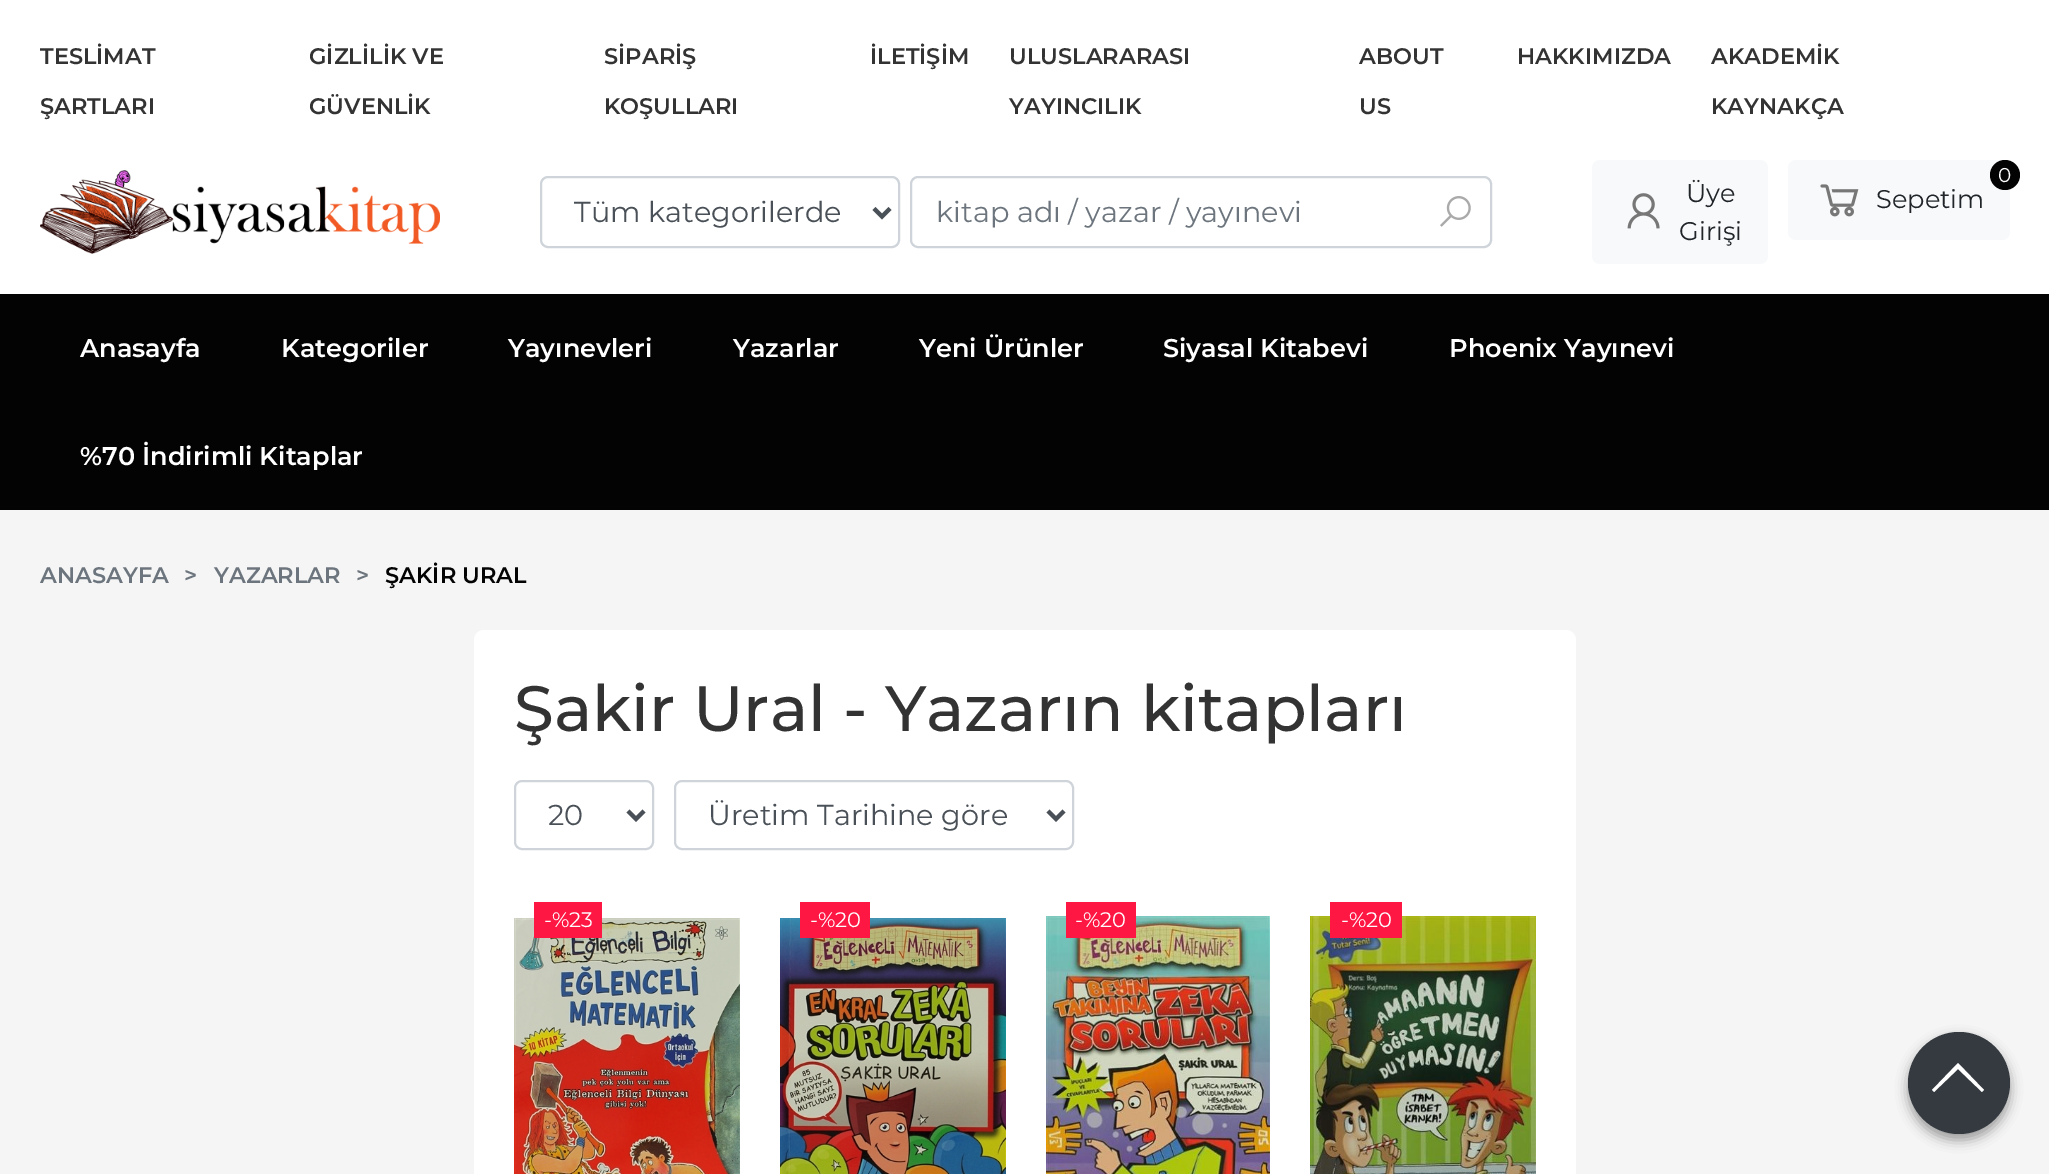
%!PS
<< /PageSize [2049 1174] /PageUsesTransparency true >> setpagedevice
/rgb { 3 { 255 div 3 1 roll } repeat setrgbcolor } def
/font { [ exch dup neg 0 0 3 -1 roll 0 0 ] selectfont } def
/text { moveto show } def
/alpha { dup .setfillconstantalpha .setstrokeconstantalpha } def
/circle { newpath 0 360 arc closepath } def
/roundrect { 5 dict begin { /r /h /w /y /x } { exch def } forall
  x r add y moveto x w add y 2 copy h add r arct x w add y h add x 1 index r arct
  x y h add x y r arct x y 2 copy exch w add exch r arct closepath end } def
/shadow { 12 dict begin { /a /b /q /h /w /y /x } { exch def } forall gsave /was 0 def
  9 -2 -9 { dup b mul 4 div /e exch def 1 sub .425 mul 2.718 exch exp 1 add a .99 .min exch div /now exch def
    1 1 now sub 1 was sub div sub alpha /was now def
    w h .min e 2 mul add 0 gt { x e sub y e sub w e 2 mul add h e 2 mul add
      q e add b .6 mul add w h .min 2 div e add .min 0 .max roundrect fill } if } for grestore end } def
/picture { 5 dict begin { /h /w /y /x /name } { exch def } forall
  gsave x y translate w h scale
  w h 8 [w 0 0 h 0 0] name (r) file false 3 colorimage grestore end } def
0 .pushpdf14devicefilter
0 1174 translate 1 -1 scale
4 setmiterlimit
245 245 245 rgb
0 0 2049 1174 rectfill
255 255 255 rgb
0 0 2049 294 rectfill
(img_01.rgb) 40 170 400 84 picture
206 212 218 rgb
2 setlinewidth
541 177 358 70 7 roundrect stroke
73 80 87 rgb
4 setlinewidth
874 208.5 moveto 8 8 rlineto 8 -8 rlineto stroke
206 212 218 rgb
2 setlinewidth
911 177 580 70 7 roundrect stroke
(img_02.rgb) 1440 196 31 31 picture
248 249 250 rgb
1592 160 176 104 8 roundrect fill
(img_03.rgb) 1627 193 33 36 picture
1788 160 222 80 8 roundrect fill
3 3 3 rgb
2005 175 15 circle fill
(img_04.rgb) 1820 184 39 33 picture
0 294 2049 216 rectfill
255 255 255 rgb
474 630 1102 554 10 roundrect fill
206 212 218 rgb
515 781 138 68 7 roundrect stroke
73 80 87 rgb
4 setlinewidth
628 811 moveto 8 8 rlineto 8 -8 rlineto stroke
206 212 218 rgb
2 setlinewidth
675 781 398 68 7 roundrect stroke
73 80 87 rgb
4 setlinewidth
1048 811 moveto 8 8 rlineto 8 -8 rlineto stroke
(img_05.rgb) 514 918 226 256 picture
255 23 68 rgb
534 902 68 36 rectfill
(img_06.rgb) 780 918 226 256 picture
800 902 70 36 rectfill
(img_07.rgb) 1046 916 224 258 picture
1066 902 70 36 rectfill
(img_08.rgb) 1310 916 226 258 picture
1330 902 72 36 rectfill
0 0 0 rgb
1908 1038 102 102 51 6 0.23 shadow
1908 1038 102 102 51 6 0.16 shadow
52 58 64 rgb
1959 1083 51 circle fill
255 255 255 rgb
1958 1063 moveto -26 27 rlineto 2 2 rlineto 24 -23 rlineto 24 23 rlineto 2 -2 rlineto closepath fill
/Montserrat-SemiBold 22.5 font
51 51 51 rgb
(TESLİMAT) 40 64 text
(ŞARTLARI) 40 114 text
(GİZLİLİK VE) 309 64 text
(GÜVENLİK) 309 114 text
(SİPARİŞ) 604 64 text
(KOŞULLARI) 604 114 text
(İLETİŞİM) 870 64 text
(ULUSLARARASI) 1009 64 text
(YAYINCILIK) 1009 114 text
(ABOUT) 1359 64 text
(US) 1359 114 text
(HAKKIMIZDA) 1517 64 text
(AKADEMİK) 1711 64 text
(KAYNAKÇA) 1711 114 text
/Montserrat-Regular 28.75 font
73 80 87 rgb
(Tüm kategorilerde) 574 222 text
108 117 125 rgb
(kitap adı / yazar / yayınevi) 936 222 text
/Montserrat-Regular 25.6 font
33 37 41 rgb
(Üye) 1686 202 text
(Girişi) 1679 240 text
/Montserrat-Regular 20 font
255 255 255 rgb
(0) 1998 182 text
/Montserrat-Regular 25.6 font
33 37 41 rgb
(Sepetim) 1876 208 text
/Montserrat-SemiBold 25.6 font
255 255 255 rgb
(Anasayfa) 80 357 text
(Kategoriler) 281 357 text
(Yayınevleri) 508 357 text
(Yazarlar) 733 357 text
(Yeni Ürünler) 919 357 text
(Siyasal Kitabevi) 1163 357 text
(Phoenix Yayınevi) 1449 357 text
(%70 İndirimli Kitaplar) 80 465 text
/Montserrat-SemiBold 22.5 font
108 117 125 rgb
(ANASAYFA) 40 583 text
(>) 184 583 text
(YAZARLAR) 214 583 text
(>) 356 583 text
3 3 3 rgb
(ŞAKİR URAL) 385 583 text
/Montserrat-Medium 64 font
51 51 51 rgb
(Şakir Ural - Yazarın kitapları) 514 731 text
/Montserrat-Regular 28.75 font
73 80 87 rgb
(20) 548 825 text
(Üretim Tarihine göre) 708 825 text
/Montserrat-Regular 21 font
255 255 255 rgb
(-%23) 544 927 text
(-%20) 810 927 text
(-%20) 1075 927 text
(-%20) 1341 927 text
.poppdf14devicefilter showpage
